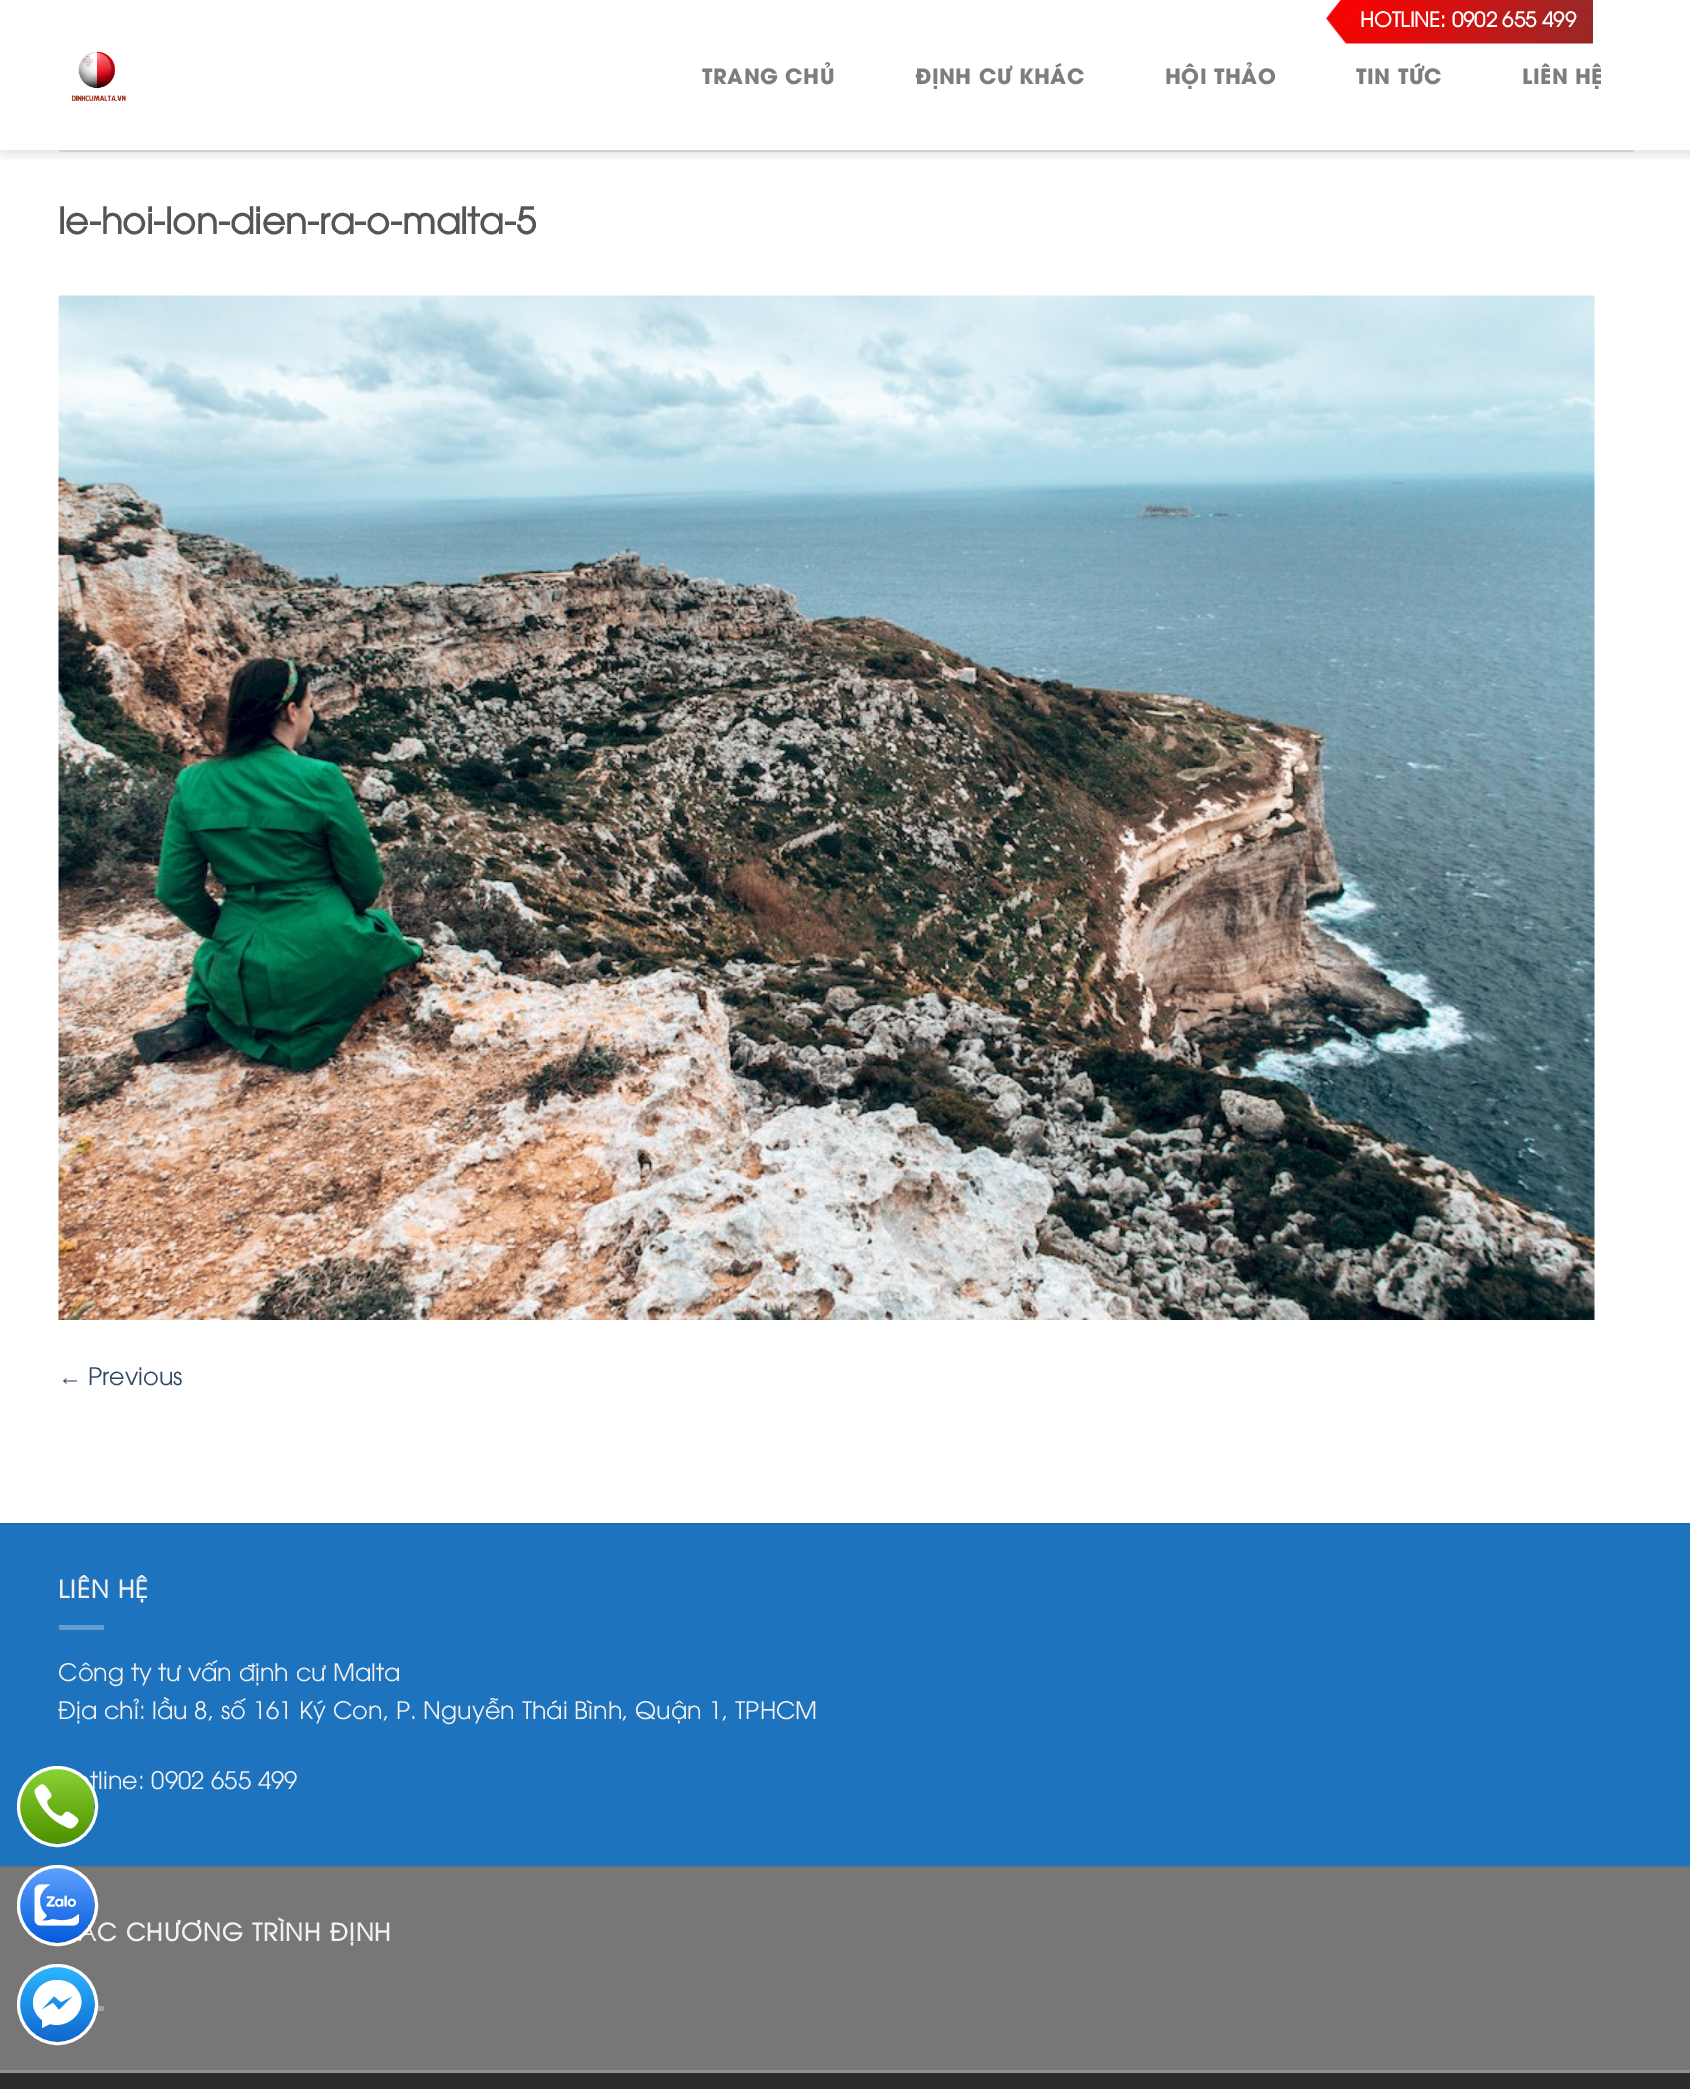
%!PS
<< /PageSize [1690 2089] /PageUsesTransparency true >> setpagedevice
/rgb { 3 { 255 div 3 1 roll } repeat setrgbcolor } def
/font { [ exch dup neg 0 0 3 -1 roll 0 0 ] selectfont } def
/text { moveto show } def
/alpha { dup .setfillconstantalpha .setstrokeconstantalpha } def
/circle { newpath 0 360 arc closepath } def
/roundrect { 5 dict begin { /r /h /w /y /x } { exch def } forall
  x r add y moveto x w add y 2 copy h add r arct x w add y h add x 1 index r arct
  x y h add x y r arct x y 2 copy exch w add exch r arct closepath end } def
/shadow { 12 dict begin { /a /b /q /h /w /y /x } { exch def } forall gsave /was 0 def
  9 -2 -9 { dup b mul 4 div /e exch def 1 sub .425 mul 2.718 exch exp 1 add a .99 .min exch div /now exch def
    1 1 now sub 1 was sub div sub alpha /was now def
    w h .min e 2 mul add 0 gt { x e sub y e sub w e 2 mul add h e 2 mul add
      q e add b .6 mul add w h .min 2 div e add .min 0 .max roundrect fill } if } for grestore end } def
/picture { 5 dict begin { /h /w /y /x /name } { exch def } forall
  gsave x y translate w h scale
  w h 8 [w 0 0 h 0 0] name (r) file false 3 colorimage grestore end } def
0 .pushpdf14devicefilter
0 2089 translate 1 -1 scale
4 setmiterlimit
255 255 255 rgb
0 0 1690 2089 rectfill
119 119 119 rgb
0 1868 1690 202 rectfill
160 160 160 rgb
93 2006 11 5 rectfill
gsave 57 2004 37.5 circle clip newpath
<< /ShadingType 2 /ColorSpace /DeviceRGB /Coords [56 2040 56 1967] /Extend [true true] /Function << /FunctionType 2 /Domain [0 1] /C0 [0.067 0.408 0.812] /C1 [0.173 0.718 1] /N 1 >> >> shfill grestore
255 255 255 rgb
57 1980 moveto -22 0 -33 26 -15 40 rcurveto 0 8 rlineto 8 -4 rlineto 22 6 43 -20 24 -38 rcurveto -4 -4 -11 -6 -17 -6 rcurveto closepath 59 2010 moveto -6 -7 rlineto -12 7 rlineto 13 -14 rlineto 7 6 rlineto 12 -6 rlineto closepath eofill
3 setlinewidth
57.5 2004.5 39 circle stroke
gsave
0 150 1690 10 rectclip
0 0 0 rgb
2 2 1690 150 0 7.5 0.15 shadow
grestore
(img_03.rgb) 72 51 54 51 picture
(img_04.rgb) 1326 0 267 44 picture
210 210 210 rgb
59 150 1575 2 rectfill
(img_05.rgb) 58 295 1537 1025 picture
30 115 190 rgb
0 1525 1690 341 rectfill
29 109 181 rgb
0 1523 1690 2 rectfill
98 157 210 rgb
59 1625 45 5 rectfill
113 113 113 rgb
0 1866 1690 2 rectfill
44 44 44 rgb
0 2073 1690 16 rectfill
145 144 144 rgb
0 2070 1690 3 rectfill
/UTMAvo-Bold 20.4 font
255 255 255 rgb
(HOTLINE: 0902 655 499) 1360 27 text
/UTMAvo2-Bold 21 font
125 125 125 rgb
702 84 moveto 0.5 0 (TRANG CHỦ) ashow
915 84 moveto 0.5 0 (ĐỊNH CƯ KHÁC) ashow
1165 84 moveto 0.5 0 (HỘI THẢO) ashow
1356 84 moveto 0.5 0 (TIN TỨC) ashow
1522 84 moveto 0.5 0 (LIÊN HỆ) ashow
/UTMAvo-Bold 36 font
85 85 85 rgb
(le-hoi-lon-dien-ra-o-malta-5) 58 234 text
/LiberationSerif-Regular 24 font
51 72 98 rgb
(←) 58 1385 text
/UTMAvo-Regular 24 font
(Previous) 88 1385 text
/UTMAvo-Bold 24 font
241 241 241 rgb
58 1598 moveto 1.2 0 (LIÊN HỆ) ashow
/UTMAvo-Regular 24 font
(Công ty tư vấn định cư Malta) 58 1681 text
(Địa chỉ: lầu 8, số 161 Ký Con, P. Nguyễn Thái Bình, Quận 1, TPHCM) 58 1719 text
(tline: 0902 655 499) 90 1789 text
(img_01.rgb) 20 1769 75 75 picture
255 255 255 rgb
57.5 1806.5 39 circle stroke
/UTMAvo-Bold 24 font
241 241 241 rgb
78 1941 moveto 1.2 0 (ÁC CHƯƠNG TRÌNH ĐỊNH) ashow
(img_02.rgb) 20 1868 75 75 picture
255 255 255 rgb
57.5 1905.5 39 circle stroke
.poppdf14devicefilter showpage
